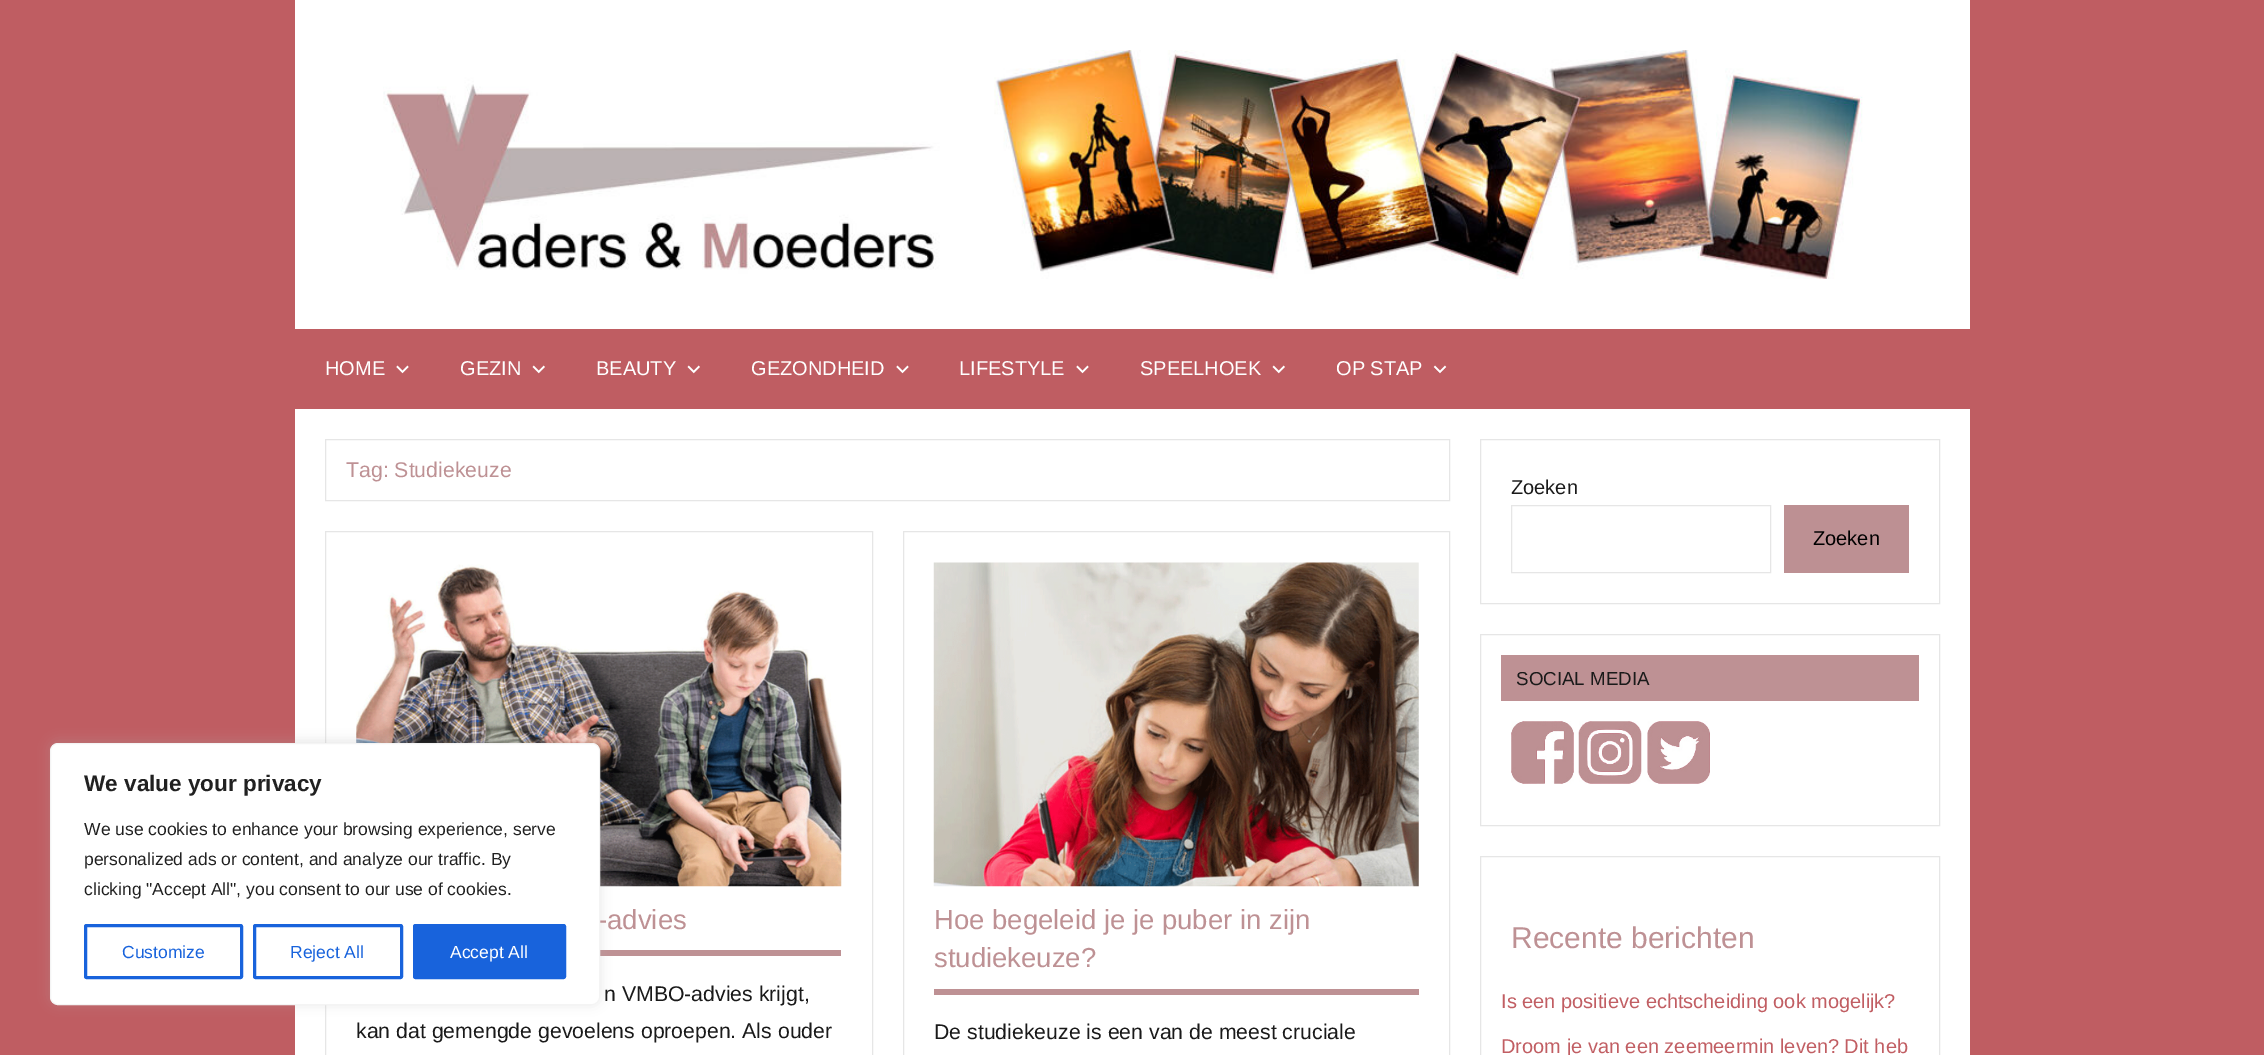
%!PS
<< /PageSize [2264 1055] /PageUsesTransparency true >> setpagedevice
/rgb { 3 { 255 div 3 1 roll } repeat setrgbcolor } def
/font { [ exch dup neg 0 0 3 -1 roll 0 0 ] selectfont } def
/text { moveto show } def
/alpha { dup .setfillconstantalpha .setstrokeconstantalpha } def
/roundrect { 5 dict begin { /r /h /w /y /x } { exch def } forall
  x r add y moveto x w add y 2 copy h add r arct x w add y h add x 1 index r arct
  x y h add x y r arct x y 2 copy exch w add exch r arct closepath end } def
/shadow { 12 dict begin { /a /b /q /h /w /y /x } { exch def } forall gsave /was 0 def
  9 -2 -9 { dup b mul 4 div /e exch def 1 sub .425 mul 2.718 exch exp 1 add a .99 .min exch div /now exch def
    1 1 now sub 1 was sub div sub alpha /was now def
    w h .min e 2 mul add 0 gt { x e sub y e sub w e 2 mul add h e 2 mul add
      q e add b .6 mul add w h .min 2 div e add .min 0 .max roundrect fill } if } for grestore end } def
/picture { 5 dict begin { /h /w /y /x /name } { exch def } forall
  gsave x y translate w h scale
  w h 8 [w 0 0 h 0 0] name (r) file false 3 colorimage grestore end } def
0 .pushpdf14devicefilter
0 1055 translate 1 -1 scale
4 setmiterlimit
191 93 98 rgb
0 0 2264 1055 rectfill
255 255 255 rgb
295 409 1675 646 rectfill
230 230 230 rgb
325.5 531.5 547 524 rectstroke
(img_05.rgb) 356 564 486 323 picture
190 145 148 rgb
600 950 241 6 rectfill
172 171 171 rgb
50 741 550 263 8 6 0.3 shadow
255 255 255 rgb
295 0 1675 329 rectfill
(img_01.rgb) 383 50 1480 229 picture
(img_02.rgb) 396 365 13 9 picture
(img_03.rgb) 532 365 13 9 picture
(img_03.rgb) 687 365 13 9 picture
(img_02.rgb) 896 365 13 9 picture
(img_02.rgb) 1076 365 13 9 picture
(img_03.rgb) 1272 365 13 9 picture
(img_04.rgb) 1433 365 14 9 picture
230 230 230 rgb
325.5 439.5 1124 61 rectstroke
903.5 531.5 546 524 rectstroke
(img_06.rgb) 933 562 486 325 picture
190 145 148 rgb
934 989 485 6 rectfill
230 230 230 rgb
1480.5 439.5 459 164 rectstroke
1511.5 505.5 259 67 rectstroke
189 144 147 rgb
1784 505 125 68 rectfill
230 230 230 rgb
1480.5 634.5 459 191 rectstroke
190 145 148 rgb
1501 655 418 46 rectfill
(img_07.rgb) 1511 721 63 63 picture
(img_08.rgb) 1578 721 64 63 picture
(img_09.rgb) 1647 721 63 63 picture
230 230 230 rgb
1480.5 856.5 459 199 rectstroke
/LiberationSans-Regular 20 font
255 255 255 rgb
(HOME) 325 375 text
(GEZIN) 460 375 text
(BEAUTY) 596 375 text
(GEZONDHEID) 751 375 text
(LIFESTYLE) 959 375 text
(SPEELHOEK) 1140 375 text
(OP STAP) 1336 375 text
/LiberationSans-Regular 21.25 font
190 145 148 rgb
(Tag: Studiekeuze) 346 477 text
/LiberationSans-Regular 27.5 font
(-advies) 598 929 text
255 255 255 rgb
50.5 743.5 549 261 7.5 roundrect gsave fill grestore
244 244 244 rgb
stroke
24 99 220 rgb
414.5 925.5 150 52 1 roundrect gsave fill grestore
3 setlinewidth
stroke
/LiberationSans-Regular 17.5 font
255 255 255 rgb
(Accept All) 450 958 text
24 99 220 rgb
254.5 925.5 147 52 1 roundrect stroke
(Reject All) 290 958 text
85.5 925.5 156 52 1 roundrect stroke
(Customize) 122 958 text
33 33 33 rgb
(clicking "Accept All", you consent to our use of cookies.) 84 895 text
(personalized ads or content, and analyze our traffic. By) 84 865 text
(We use cookies to enhance your browsing experience, serve) 84 835 text
/LiberationSans-Bold 22.5 font
(We value your privacy) 84 791 text
/LiberationSans-Regular 21.25 font
26 26 26 rgb
(n VMBO-advies krijgt,) 604 1001 text
(kan dat gemengde gevoelens oproepen. Als ouder) 356 1038 text
/LiberationSans-Regular 27.5 font
190 145 148 rgb
(Hoe begeleid je je puber in zijn) 934 929 text
(studiekeuze?) 934 967 text
/LiberationSans-Regular 21.25 font
26 26 26 rgb
(De studiekeuze is een van de meest cruciale) 934 1039 text
/LiberationSans-Regular 20 font
(Zoeken) 1511 494 text
0 0 0 rgb
(Zoeken) 1813 545 text
/LiberationSans-Regular 18.75 font
26 26 26 rgb
(SOCIAL MEDIA) 1516 685 text
/LiberationSans-Regular 30 font
190 145 148 rgb
(Recente berichten) 1511 948 text
/LiberationSans-Regular 20 font
193 94 99 rgb
(Is een positieve echtscheiding ook mogelijk?) 1501 1008 text
(Droom je van een zeemeermin leven? Dit heb) 1501 1053 text
.poppdf14devicefilter showpage
